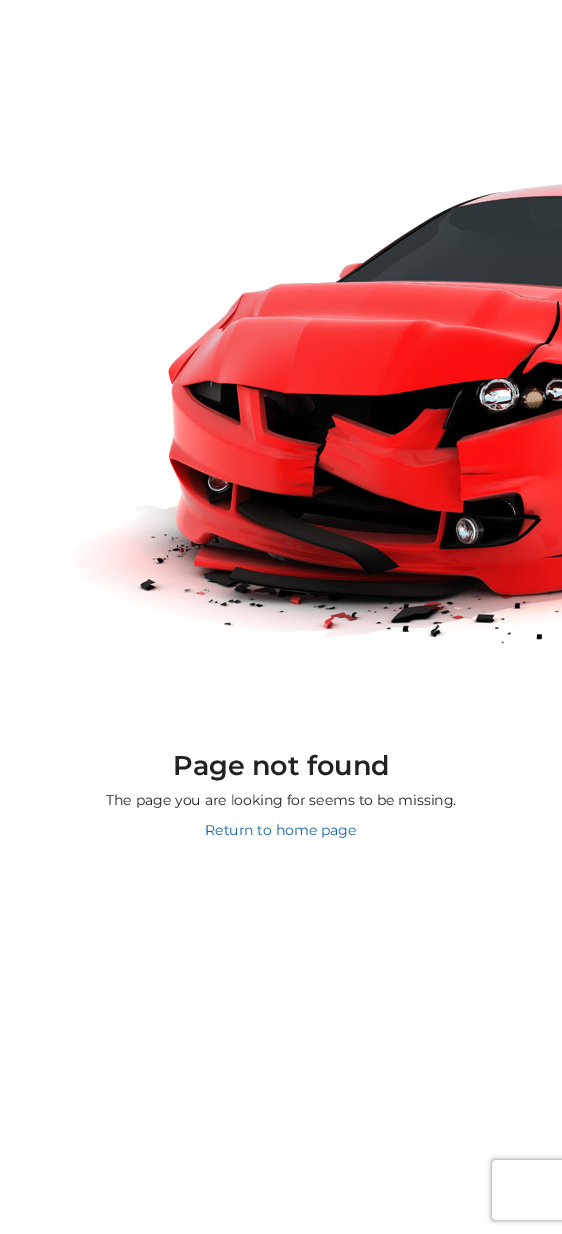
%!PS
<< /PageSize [562 1234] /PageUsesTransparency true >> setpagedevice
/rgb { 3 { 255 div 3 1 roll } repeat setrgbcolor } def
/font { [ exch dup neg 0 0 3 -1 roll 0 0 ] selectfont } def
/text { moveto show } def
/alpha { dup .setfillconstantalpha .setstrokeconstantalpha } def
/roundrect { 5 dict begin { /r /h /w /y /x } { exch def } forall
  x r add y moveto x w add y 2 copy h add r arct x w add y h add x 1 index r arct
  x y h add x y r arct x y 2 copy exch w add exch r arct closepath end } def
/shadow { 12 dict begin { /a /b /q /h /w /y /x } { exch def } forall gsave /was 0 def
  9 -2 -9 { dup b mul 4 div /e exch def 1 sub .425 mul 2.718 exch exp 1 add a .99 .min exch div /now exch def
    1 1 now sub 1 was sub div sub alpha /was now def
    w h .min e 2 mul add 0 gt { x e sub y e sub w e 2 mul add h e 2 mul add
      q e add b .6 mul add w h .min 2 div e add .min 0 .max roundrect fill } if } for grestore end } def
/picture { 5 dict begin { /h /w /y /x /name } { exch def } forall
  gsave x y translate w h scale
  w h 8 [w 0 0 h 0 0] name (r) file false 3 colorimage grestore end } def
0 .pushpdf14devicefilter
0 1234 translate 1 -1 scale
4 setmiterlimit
255 255 255 rgb
0 0 562 1234 rectfill
(img_01.rgb) 72 184 490 460 picture
gsave
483 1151 moveto 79 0 rlineto 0 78 rlineto -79 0 rlineto closepath 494 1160 moveto 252 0 rlineto 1 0 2 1 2 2 rcurveto 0 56 rlineto 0 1 -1 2 -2 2 rcurveto -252 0 rlineto -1 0 -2 -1 -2 -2 rcurveto 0 -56 rlineto 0 -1 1 -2 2 -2 rcurveto closepath eoclip newpath
128 128 128 rgb
492 1160 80 60 2 2.5 1 shadow
grestore
/Montserrat-SemiBold 27 font
34 34 34 rgb
(Page not found) 173 775 text
/Montserrat-Regular 14 font
(The page you are looking for seems to be missing.) 106 805 text
19 97 169 rgb
(Return to home page) 205 835 text
.poppdf14devicefilter showpage
